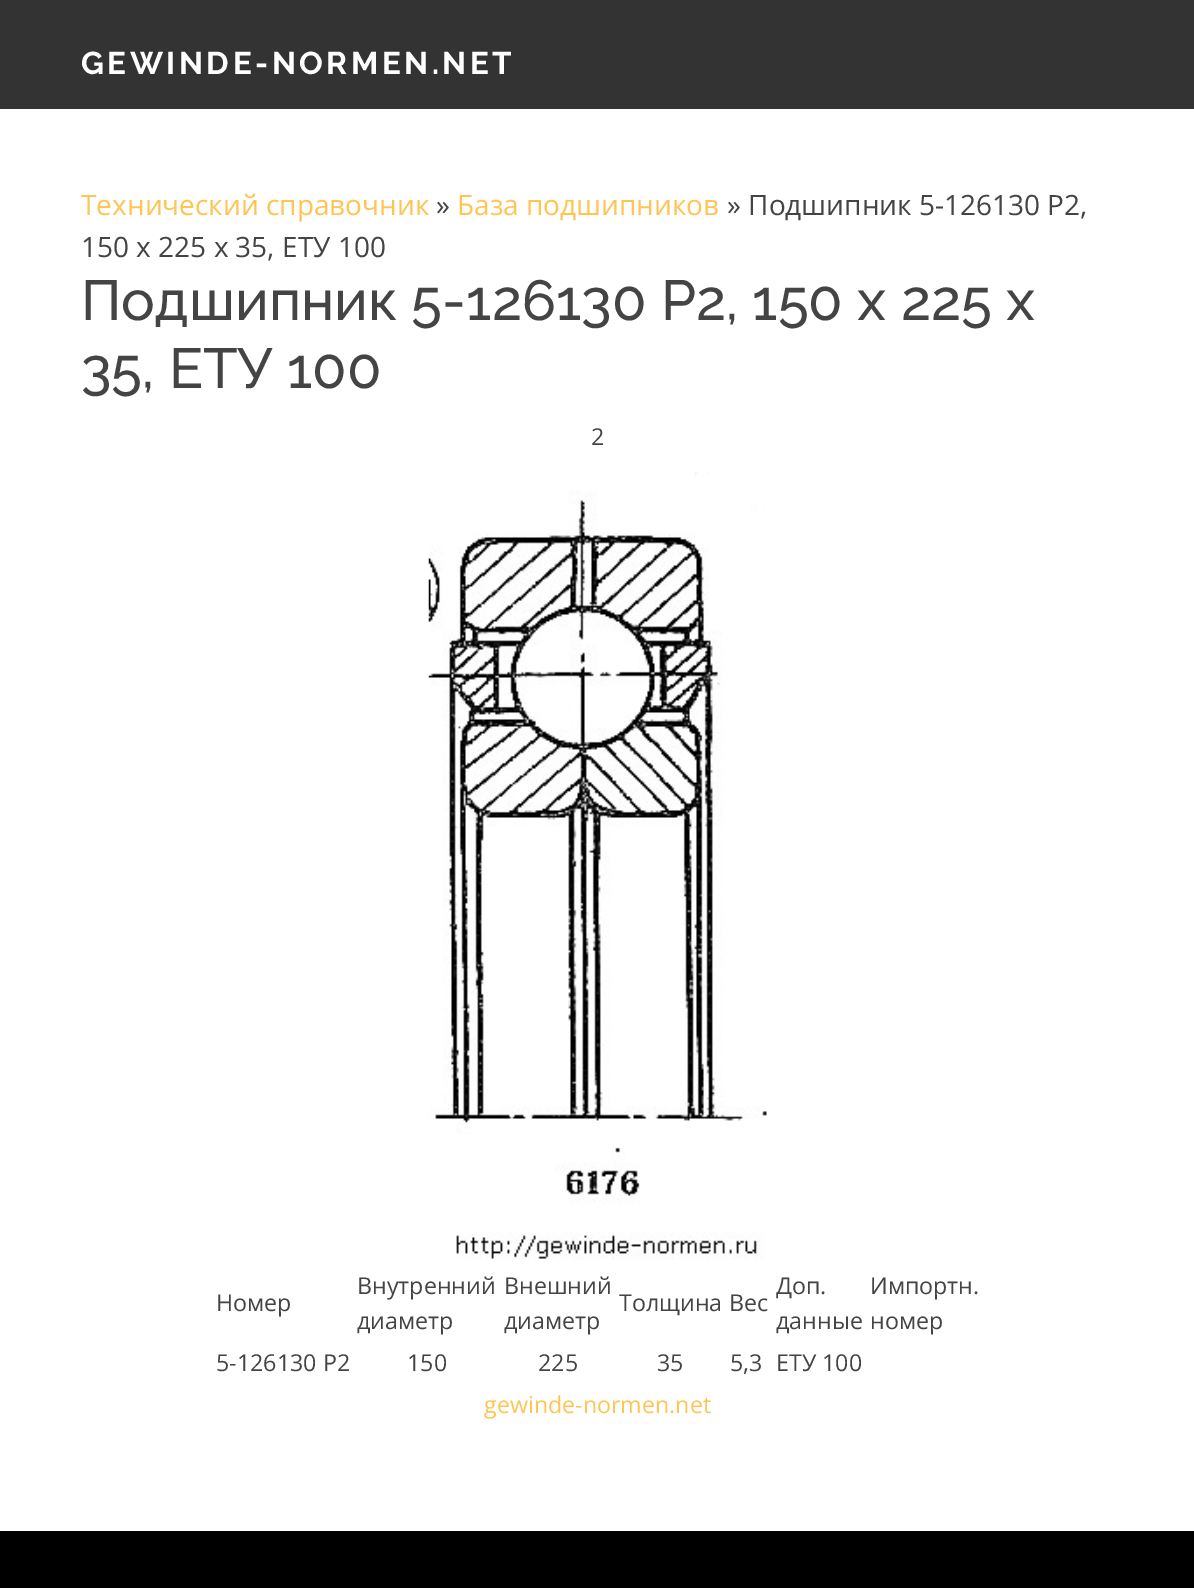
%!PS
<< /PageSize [1194 1588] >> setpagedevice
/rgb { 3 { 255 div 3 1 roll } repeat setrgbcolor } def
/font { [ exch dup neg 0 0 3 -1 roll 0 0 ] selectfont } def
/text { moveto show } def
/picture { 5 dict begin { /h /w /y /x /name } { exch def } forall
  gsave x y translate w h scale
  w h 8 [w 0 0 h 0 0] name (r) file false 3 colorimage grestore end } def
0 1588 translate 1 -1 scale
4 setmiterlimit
255 255 255 rgb
0 0 1194 1588 rectfill
51 51 51 rgb
0 0 1194 109 rectfill
(img_01.rgb) 428 472 339 788 picture
0 0 0 rgb
0 1531 1194 57 rectfill
/Raleway-Bold 31.5 font
255 255 255 rgb
81 74 moveto 3.5 0 (GEWINDE-NORMEN.NET) ashow
/OpenSans-Regular 28 font
255 196 81 rgb
(Технический справочник) 81 215 text
68 68 68 rgb
(») 436 215 text
255 196 81 rgb
(База подшипников) 457 215 text
68 68 68 rgb
(» Подшипник 5-126130 P2,) 727 215 text
(150 x 225 x 35, ETУ 100) 81 257 text
/Raleway-Medium 56.4 font
(Подшипник 5-126130 P2, 150 x 225 x) 81 320 text
(35, ETУ 100) 81 388 text
/OpenSans-Regular 23.25 font
(2) 591 445 text
(Номер) 216 1311 text
(Внутренний) 357 1294 text
(диаметр) 357 1329 text
(Внешний) 504 1294 text
(диаметр) 504 1329 text
(Толщина) 619 1311 text
(Вес) 729 1311 text
(Доп.) 776 1294 text
(данные) 776 1329 text
(Импортн.) 870 1294 text
(номер) 870 1329 text
(5-126130 P2) 216 1371 text
(150) 407 1371 text
(225) 538 1371 text
(35) 657 1371 text
(5,3) 730 1371 text
(ETУ 100) 776 1371 text
255 196 81 rgb
(gewinde-normen.net) 484 1413 text
showpage
